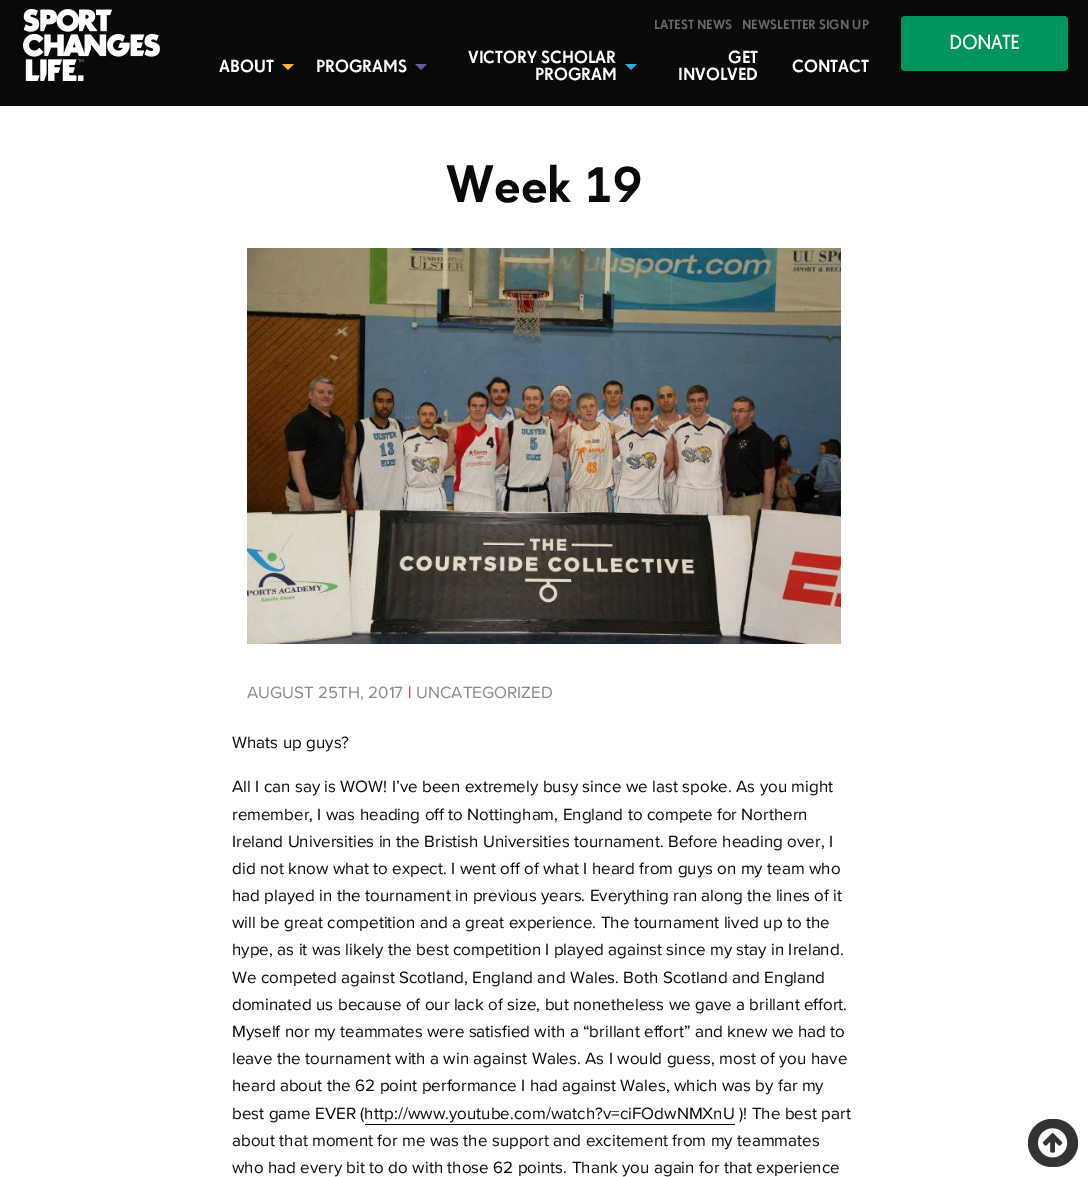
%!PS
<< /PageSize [1088 1177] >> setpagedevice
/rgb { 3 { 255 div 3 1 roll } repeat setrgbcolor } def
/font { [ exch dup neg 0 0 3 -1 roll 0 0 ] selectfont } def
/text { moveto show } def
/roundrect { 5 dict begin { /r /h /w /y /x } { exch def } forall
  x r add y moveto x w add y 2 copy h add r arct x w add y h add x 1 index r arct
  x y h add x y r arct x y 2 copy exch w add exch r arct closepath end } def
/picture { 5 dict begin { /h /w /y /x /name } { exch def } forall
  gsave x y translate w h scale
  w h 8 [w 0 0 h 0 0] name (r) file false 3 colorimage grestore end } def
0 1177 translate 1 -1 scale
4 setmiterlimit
255 255 255 rgb
0 0 1088 1177 rectfill
10 10 10 rgb
0 0 1088 106 rectfill
(img_01.rgb) 23 9 137 72 picture
250 181 58 rgb
282 64 moveto 12 0 rlineto -6 6 rlineto closepath fill
109 88 162 rgb
415 64 moveto 12 0 rlineto -6 6 rlineto closepath fill
54 169 225 rgb
625 64 moveto 12 0 rlineto -6 6 rlineto closepath fill
0 149 95 rgb
901 16 167 55 4 roundrect fill
(img_02.rgb) 247 248 594 396 picture
10 10 10 rgb
365 1124 370 1 rectfill
51 51 51 rgb
1028 1119 50 48 24 roundrect fill
(img_03.rgb) 1038 1128 30 30 picture
/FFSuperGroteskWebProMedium-Regular 13 font
103 103 103 rgb
(LATEST NEWS) 654 29 text
(NEWSLETTER SIGN UP) 742 29 text
/FFSuperGroteskWebProMedium-Regular 17 font
255 255 255 rgb
(ABOUT) 219 72 text
(PROGRAMS) 316 72 text
(VICTORY SCHOLAR) 468 63 text
(PROGRAM) 535 80 text
(GET) 728 63 text
(INVOLVED) 678 80 text
(CONTACT) 792 72 text
/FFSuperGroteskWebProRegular-Bold 19 font
(DONATE) 949 49 text
/FFSuperGroteskWebProMedium-Regular 51 font
10 10 10 rgb
(Week 19) 446 202 text
/ProximaNova-Regular 17 font
138 138 138 rgb
(AUGUST 25TH, 2017) 247 698 text
227 6 19 rgb
(|) 408 698 text
138 138 138 rgb
(UNCATEGORIZED) 416 698 text
10 10 10 rgb
(Whats up guys?) 232 748 text
(All I can say is WOW! I’ve been extremely busy since we last spoke. As you might) 232 792 text
(remember, I was heading off to Nottingham, England to compete for Northern) 232 820 text
(Ireland Universities in the Bristish Universities tournament. Before heading over, I) 232 847 text
(did not know what to expect. I went off of what I heard from guys on my team who) 232 874 text
(had played in the tournament in previous years. Everything ran along the lines of it) 232 901 text
(will be great competition and a great experience. The tournament lived up to the) 232 928 text
(hype, as it was likely the best competition I played against since my stay in Ireland.) 232 955 text
(We competed against Scotland, England and Wales. Both Scotland and England) 232 983 text
(dominated us because of our lack of size, but nonetheless we gave a brillant effort.) 232 1010 text
(Myself nor my teammates were satisfied with a “brillant effort” and knew we had to) 232 1037 text
(leave the tournament with a win against Wales. As I would guess, most of you have) 232 1064 text
(heard about the 62 point performance I had against Wales, which was by far my) 232 1091 text
(best game EVER \(http://www.youtube.com/watch?v=ciFOdwNMXnU \)! The best part) 232 1119 text
(about that moment for me was the support and excitement from my teammates) 232 1146 text
(who had every bit to do with those 62 points. Thank you again for that experience) 232 1173 text
showpage
